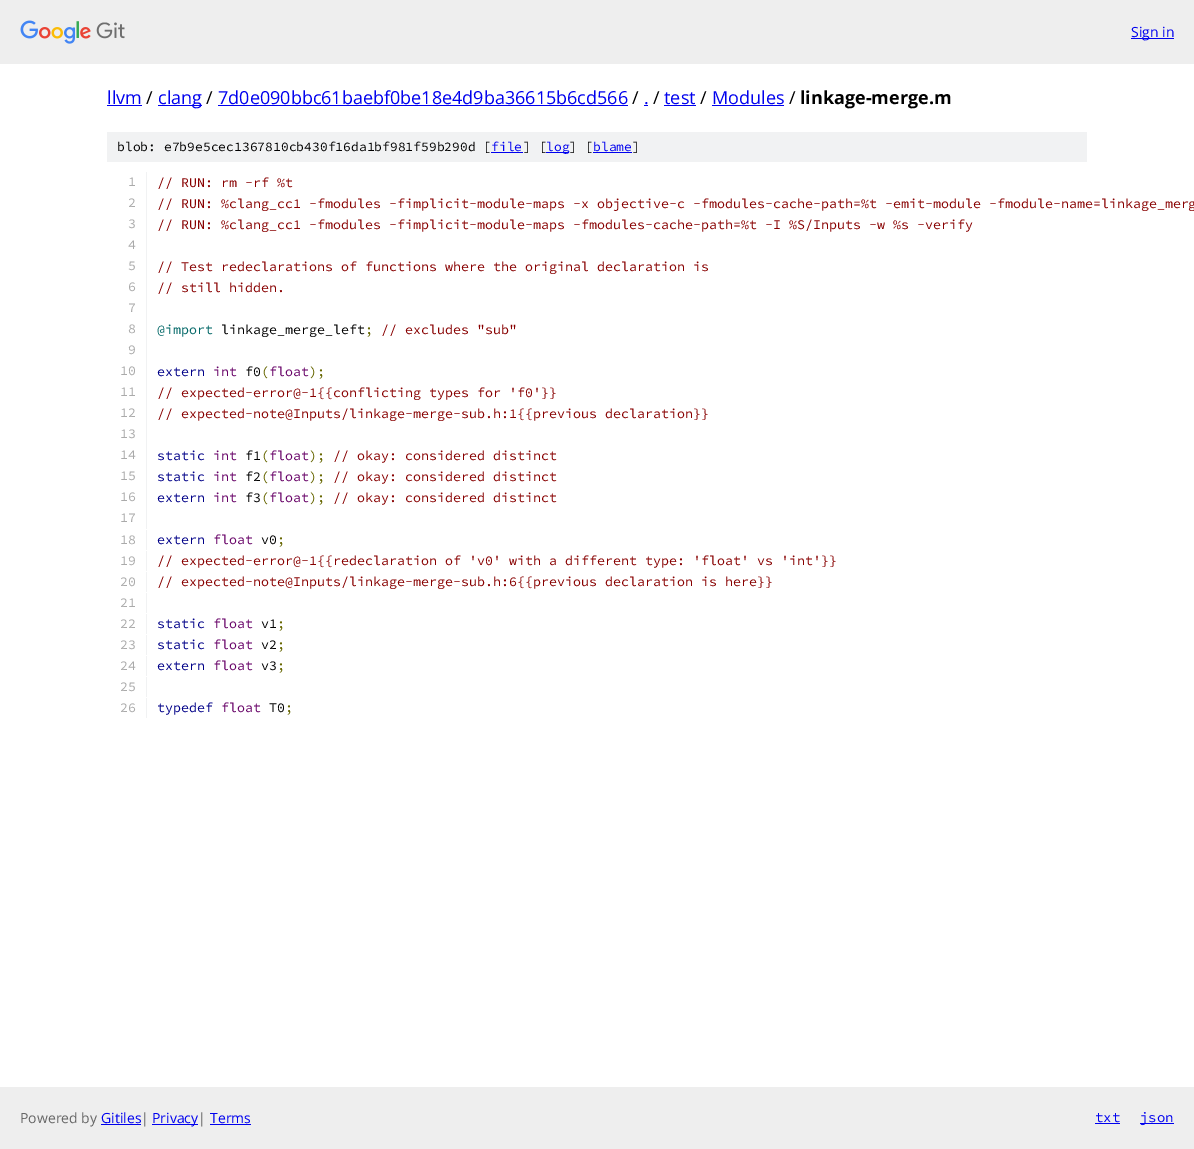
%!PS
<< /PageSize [1194 1149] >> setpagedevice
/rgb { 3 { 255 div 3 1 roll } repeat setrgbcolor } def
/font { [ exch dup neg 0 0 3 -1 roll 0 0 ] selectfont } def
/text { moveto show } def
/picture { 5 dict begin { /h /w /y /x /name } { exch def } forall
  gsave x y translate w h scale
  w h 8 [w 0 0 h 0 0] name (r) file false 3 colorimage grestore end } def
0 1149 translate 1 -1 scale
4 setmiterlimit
255 255 255 rgb
0 0 1194 1149 rectfill
238 238 238 rgb
0 0 1194 64 rectfill
(img_01.rgb) 20 20 105 24 picture
0 0 238 rgb
1131 38 43 1 rectfill
107 105 35 1 rectfill
158 105 44 1 rectfill
218 105 410 1 rectfill
644 105 4 1 rectfill
664 105 32 1 rectfill
712 105 72 1 rectfill
241 242 243 rgb
107 132 980 30 rectfill
0 0 238 rgb
491 152 32 1 rectfill
546 152 23 1 rectfill
593 152 39 1 rectfill
241 242 243 rgb
146 172 1 357 rectfill
146 530 1 20 rectfill
146 551 1 20 rectfill
146 572 1 20 rectfill
146 593 1 20 rectfill
146 614 1 20 rectfill
146 635 1 20 rectfill
146 656 1 20 rectfill
146 677 1 20 rectfill
146 698 1 20 rectfill
238 238 238 rgb
0 1087 1194 62 rectfill
0 0 238 rgb
101 1124 40 1 rectfill
152 1124 46 1 rectfill
210 1124 41 1 rectfill
1095 1123 25 1 rectfill
1140 1123 34 1 rectfill
/OpenSans-Regular 14 font
(Sign in) 1131 37 text
/OpenSans-Regular 18 font
(llvm) 107 104 text
0 0 0 rgb
(/) 146 104 text
0 0 238 rgb
(clang) 158 104 text
0 0 0 rgb
(/) 206 104 text
0 0 238 rgb
(7d0e090bbc61baebf0be18e4d9ba36615b6cd566) 218 104 text
0 0 0 rgb
(/) 632 104 text
0 0 238 rgb
(.) 644 104 text
0 0 0 rgb
(/) 653 104 text
0 0 238 rgb
(test) 664 104 text
0 0 0 rgb
(/) 700 104 text
0 0 238 rgb
(Modules) 712 104 text
0 0 0 rgb
(/) 789 104 text
/OpenSans-Bold 18 font
(linkage-merge.m) 800 104 text
/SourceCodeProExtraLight-ExtraLight 13 font
(blob: e7b9e5cec1367810cb430f16da1bf981f59b290d [) 117 151 text
0 0 238 rgb
(file) 491 151 text
0 0 0 rgb
(] [) 523 151 text
0 0 238 rgb
(log) 546 151 text
0 0 0 rgb
(] [) 569 151 text
0 0 238 rgb
(blame) 593 151 text
0 0 0 rgb
(]) 632 151 text
/SourceCodeProExtraLight-ExtraLight 13.33 font
170 170 170 rgb
(1) 128 186 text
136 0 0 rgb
(// RUN: rm -rf %t) 157 187 text
170 170 170 rgb
(2) 128 207 text
136 0 0 rgb
(// RUN: %clang_cc1 -fmodules -fimplicit-module-maps -x objective-c -fmodules-cache-path=%t -emit-module -fmodule-name=linkage_merg) 157 208 text
170 170 170 rgb
(3) 128 228 text
136 0 0 rgb
(// RUN: %clang_cc1 -fmodules -fimplicit-module-maps -fmodules-cache-path=%t -I %S/Inputs -w %s -verify) 157 229 text
170 170 170 rgb
(4) 128 249 text
(5) 128 270 text
136 0 0 rgb
(// Test redeclarations of functions where the original declaration is) 157 271 text
170 170 170 rgb
(6) 128 291 text
136 0 0 rgb
(// still hidden.) 157 292 text
170 170 170 rgb
(7) 128 312 text
(8) 128 333 text
0 102 102 rgb
(@import) 157 334 text
0 0 0 rgb
(linkage_merge_left) 221 334 text
102 102 0 rgb
(;) 365 334 text
136 0 0 rgb
(// excludes "sub") 381 334 text
170 170 170 rgb
(9) 128 354 text
(10) 120 375 text
0 0 136 rgb
(extern) 157 376 text
102 0 102 rgb
(int) 213 376 text
0 0 0 rgb
(f0) 245 376 text
102 102 0 rgb
(\() 261 376 text
102 0 102 rgb
(float) 269 376 text
102 102 0 rgb
(\);) 309 376 text
170 170 170 rgb
(11) 120 396 text
136 0 0 rgb
(// expected-error@-1{{conflicting types for 'f0'}}) 157 397 text
170 170 170 rgb
(12) 120 417 text
136 0 0 rgb
(// expected-note@Inputs/linkage-merge-sub.h:1{{previous declaration}}) 157 418 text
170 170 170 rgb
(13) 120 438 text
(14) 120 459 text
0 0 136 rgb
(static) 157 460 text
102 0 102 rgb
(int) 213 460 text
0 0 0 rgb
(f1) 245 460 text
102 102 0 rgb
(\() 261 460 text
102 0 102 rgb
(float) 269 460 text
102 102 0 rgb
(\);) 309 460 text
136 0 0 rgb
(// okay: considered distinct) 333 460 text
170 170 170 rgb
(15) 120 480 text
0 0 136 rgb
(static) 157 481 text
102 0 102 rgb
(int) 213 481 text
0 0 0 rgb
(f2) 245 481 text
102 102 0 rgb
(\() 261 481 text
102 0 102 rgb
(float) 269 481 text
102 102 0 rgb
(\);) 309 481 text
136 0 0 rgb
(// okay: considered distinct) 333 481 text
170 170 170 rgb
(16) 120 501 text
0 0 136 rgb
(extern) 157 502 text
102 0 102 rgb
(int) 213 502 text
0 0 0 rgb
(f3) 245 502 text
102 102 0 rgb
(\() 261 502 text
102 0 102 rgb
(float) 269 502 text
102 102 0 rgb
(\);) 309 502 text
136 0 0 rgb
(// okay: considered distinct) 333 502 text
170 170 170 rgb
(17) 120 522 text
(18) 120 544 text
0 0 136 rgb
(extern) 157 544 text
102 0 102 rgb
(float) 213 544 text
0 0 0 rgb
(v0) 261 544 text
102 102 0 rgb
(;) 277 544 text
170 170 170 rgb
(19) 120 565 text
136 0 0 rgb
(// expected-error@-1{{redeclaration of 'v0' with a different type: 'float' vs 'int'}}) 157 565 text
170 170 170 rgb
(20) 120 586 text
136 0 0 rgb
(// expected-note@Inputs/linkage-merge-sub.h:6{{previous declaration is here}}) 157 586 text
170 170 170 rgb
(21) 120 607 text
(22) 120 628 text
0 0 136 rgb
(static) 157 628 text
102 0 102 rgb
(float) 213 628 text
0 0 0 rgb
(v1) 261 628 text
102 102 0 rgb
(;) 277 628 text
170 170 170 rgb
(23) 120 649 text
0 0 136 rgb
(static) 157 649 text
102 0 102 rgb
(float) 213 649 text
0 0 0 rgb
(v2) 261 649 text
102 102 0 rgb
(;) 277 649 text
170 170 170 rgb
(24) 120 670 text
0 0 136 rgb
(extern) 157 670 text
102 0 102 rgb
(float) 213 670 text
0 0 0 rgb
(v3) 261 670 text
102 102 0 rgb
(;) 277 670 text
170 170 170 rgb
(25) 120 691 text
(26) 120 712 text
0 0 136 rgb
(typedef) 157 712 text
102 0 102 rgb
(float) 221 712 text
0 0 0 rgb
(T0) 269 712 text
102 102 0 rgb
(;) 285 712 text
/OpenSans-Regular 14 font
102 102 102 rgb
(Powered by) 20 1123 text
0 0 238 rgb
(Gitiles) 101 1123 text
102 102 102 rgb
(|) 141 1123 text
0 0 238 rgb
(Privacy) 152 1123 text
102 102 102 rgb
(|) 198 1123 text
0 0 238 rgb
(Terms) 210 1123 text
/SourceCodeProExtraLight-ExtraLight 14 font
(txt) 1095 1122 text
(json) 1140 1122 text
showpage
